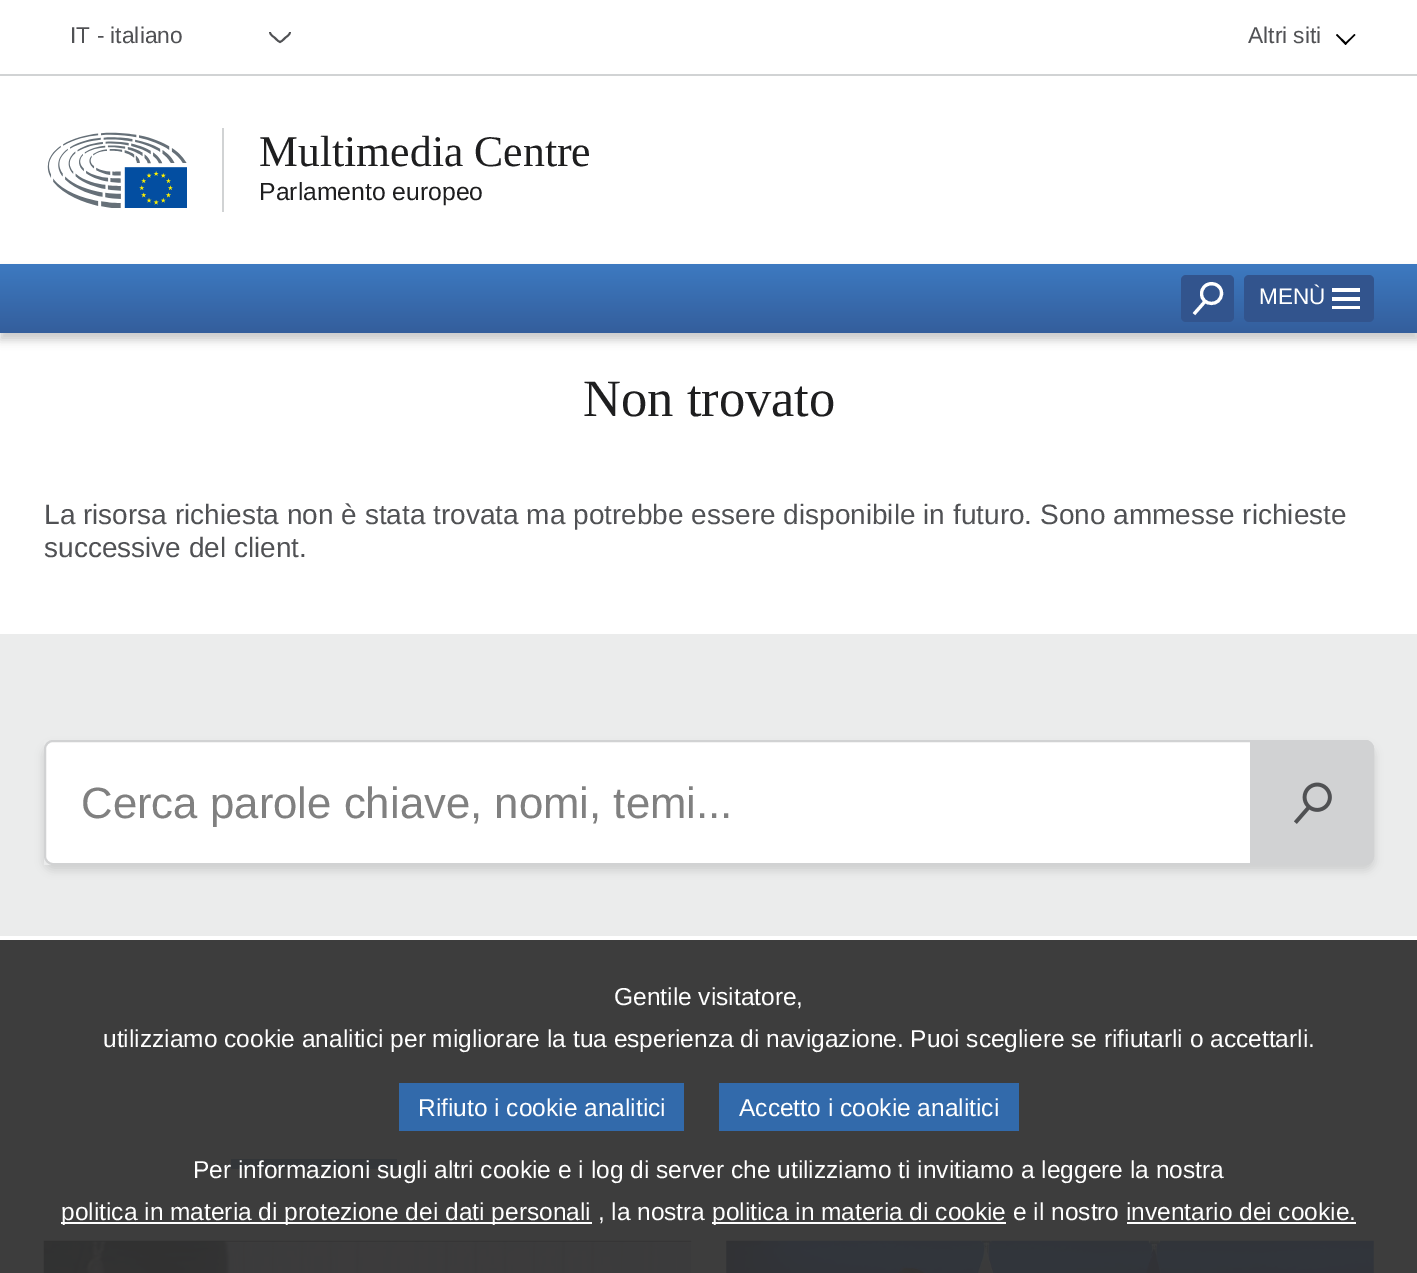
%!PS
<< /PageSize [1417 1273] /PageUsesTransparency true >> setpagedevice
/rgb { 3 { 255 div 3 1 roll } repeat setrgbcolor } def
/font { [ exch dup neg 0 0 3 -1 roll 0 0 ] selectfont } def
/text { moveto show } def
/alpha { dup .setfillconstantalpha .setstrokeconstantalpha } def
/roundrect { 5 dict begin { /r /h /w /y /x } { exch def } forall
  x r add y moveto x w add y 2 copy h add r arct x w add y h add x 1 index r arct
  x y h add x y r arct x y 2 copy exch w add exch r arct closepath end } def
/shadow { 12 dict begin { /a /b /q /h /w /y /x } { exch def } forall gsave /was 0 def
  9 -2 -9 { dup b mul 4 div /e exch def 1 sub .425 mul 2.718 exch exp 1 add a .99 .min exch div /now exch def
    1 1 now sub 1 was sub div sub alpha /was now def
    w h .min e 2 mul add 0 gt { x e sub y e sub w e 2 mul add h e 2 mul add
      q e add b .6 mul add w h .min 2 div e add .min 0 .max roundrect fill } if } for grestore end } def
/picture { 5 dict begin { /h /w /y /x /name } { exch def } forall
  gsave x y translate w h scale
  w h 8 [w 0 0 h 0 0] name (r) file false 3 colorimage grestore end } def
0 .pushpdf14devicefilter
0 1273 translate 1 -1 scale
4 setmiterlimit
255 255 255 rgb
0 0 1417 1273 rectfill
61 61 61 rgb
0 940 1417 333 rectfill
209 211 212 rgb
0 74 1417 2 rectfill
80 81 84 rgb
1.8 setlinewidth
290 32 moveto 0 2.5 -3 4.5 -4.5 5.5 rcurveto -6 6 -5 6 -11 0 rcurveto -1.5 -1 -4.5 -3 -4.5 -5.5 rcurveto stroke
0 0 0 rgb
1354.5 34 moveto 1 1 rlineto -10 10 rlineto -1 -1.5 rlineto closepath fill
1337 34 moveto 10 9.5 rlineto -1.5 1.5 rlineto -9.5 -10 rlineto closepath fill
(img_01.rgb) 47 132 140 76 picture
209 211 212 rgb
222 128 2 84 rectfill
0 0 0 rgb
0 271 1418 69 0 4.5 0.2 shadow
gsave 0 264 moveto 1417 0 rlineto 0 69 rlineto -1417 0 rlineto closepath clip newpath
<< /ShadingType 2 /ColorSpace /DeviceRGB /Coords [709 264 709 333] /Extend [true true] /Function << /FunctionType 2 /Domain [0 1] /C0 [0.239 0.478 0.757] /C1 [0.204 0.369 0.612] /N 1 >> >> shfill grestore
50 84 141 rgb
1181 275 53 47 5 roundrect fill
255 255 255 rgb
3.1 setlinewidth
1201.5 293.5 moveto 0 13 19.5 13.5 20 0 rcurveto 0.5 -9 -11 -13 -17 -7 rcurveto -2 2 -3 4.5 -3 7 rcurveto closepath 1205 301.5 moveto -11 12.5 rlineto stroke
50 84 141 rgb
1244 275 130 47 5 roundrect fill
255 255 255 rgb
1332 288 28 4 rectfill
1332 297 28 4 rectfill
1332 306 28 3 rectfill
235 236 236 rgb
0 634 1417 302 rectfill
gsave
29 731 moveto 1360 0 rlineto 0 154 rlineto -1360 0 rlineto closepath 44 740 moveto 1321 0 rlineto 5 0 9 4 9 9 rcurveto 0 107 rlineto 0 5 -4 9 -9 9 rcurveto -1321 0 rlineto closepath eoclip newpath
0 0 0 rgb
44 746 1330 124 9 4.5 0.12 shadow
grestore
255 255 255 rgb
45 741 1328 123 8 roundrect gsave fill grestore
209 210 211 rgb
2 setlinewidth
stroke
1250 740 moveto 115 0 rlineto 5 0 9 4 9 9 rcurveto 0 107 rlineto 0 5 -4 9 -9 9 rcurveto -115 0 rlineto closepath fill
(img_02.rgb) 1294 782 38 42 picture
51 54 57 rgb
231 1159 166 10 rectfill
(img_03.rgb) 43 1240 649 33 picture
(img_04.rgb) 726 1240 648 33 picture
50 106 171 rgb
399 1083 285 48 rectfill
719 1083 300 48 rectfill
255 255 255 rgb
61 1222 531 2 rectfill
712 1222 294 2 rectfill
1127 1222 229 2 rectfill
/LiberationSans-Regular 22.75 font
80 81 84 rgb
(IT - italiano) 70 43 text
(Altri siti) 1248 43 text
/LiberationSerif-Regular 43.75 font
30 30 31 rgb
(Multimedia Centre) 259 166 text
/LiberationSans-Regular 24.75 font
(Parlamento europeo) 259 200 text
/LiberationSans-Regular 22.5 font
255 255 255 rgb
(MENÙ) 1259 304 text
/LiberationSerif-Regular 52.5 font
30 30 31 rgb
(Non trovato) 583 416 text
/LiberationSans-Regular 28 font
80 81 84 rgb
(La risorsa richiesta non è stata trovata ma potrebbe essere disponibile in futuro. Sono ammesse richieste) 44 524 text
(successive del client.) 44 557 text
/LiberationSans-Regular 43.75 font
128 128 128 rgb
(Cerca parole chiave, nomi, temi...) 81 818 text
/LiberationSans-Regular 24.5 font
255 255 255 rgb
(Gentile visitatore,) 614 1005 text
(utilizziamo cookie analitici per migliorare la tua esperienza di navigazione. Puoi scegliere se rifiutarli o accettarli.) 103 1047 text
(Rifiuto i cookie analitici) 418 1116 text
(Accetto i cookie analitici) 739 1116 text
(Per informazioni sugli altri cookie e i log di server che utilizziamo ti invitiamo a leggere la nostra) 193 1178 text
(politica in materia di protezione dei dati personali , la nostra) 61 1220 text
(politica in materia di cookie e il nostro inventario dei cookie.) 712 1220 text
.poppdf14devicefilter showpage
